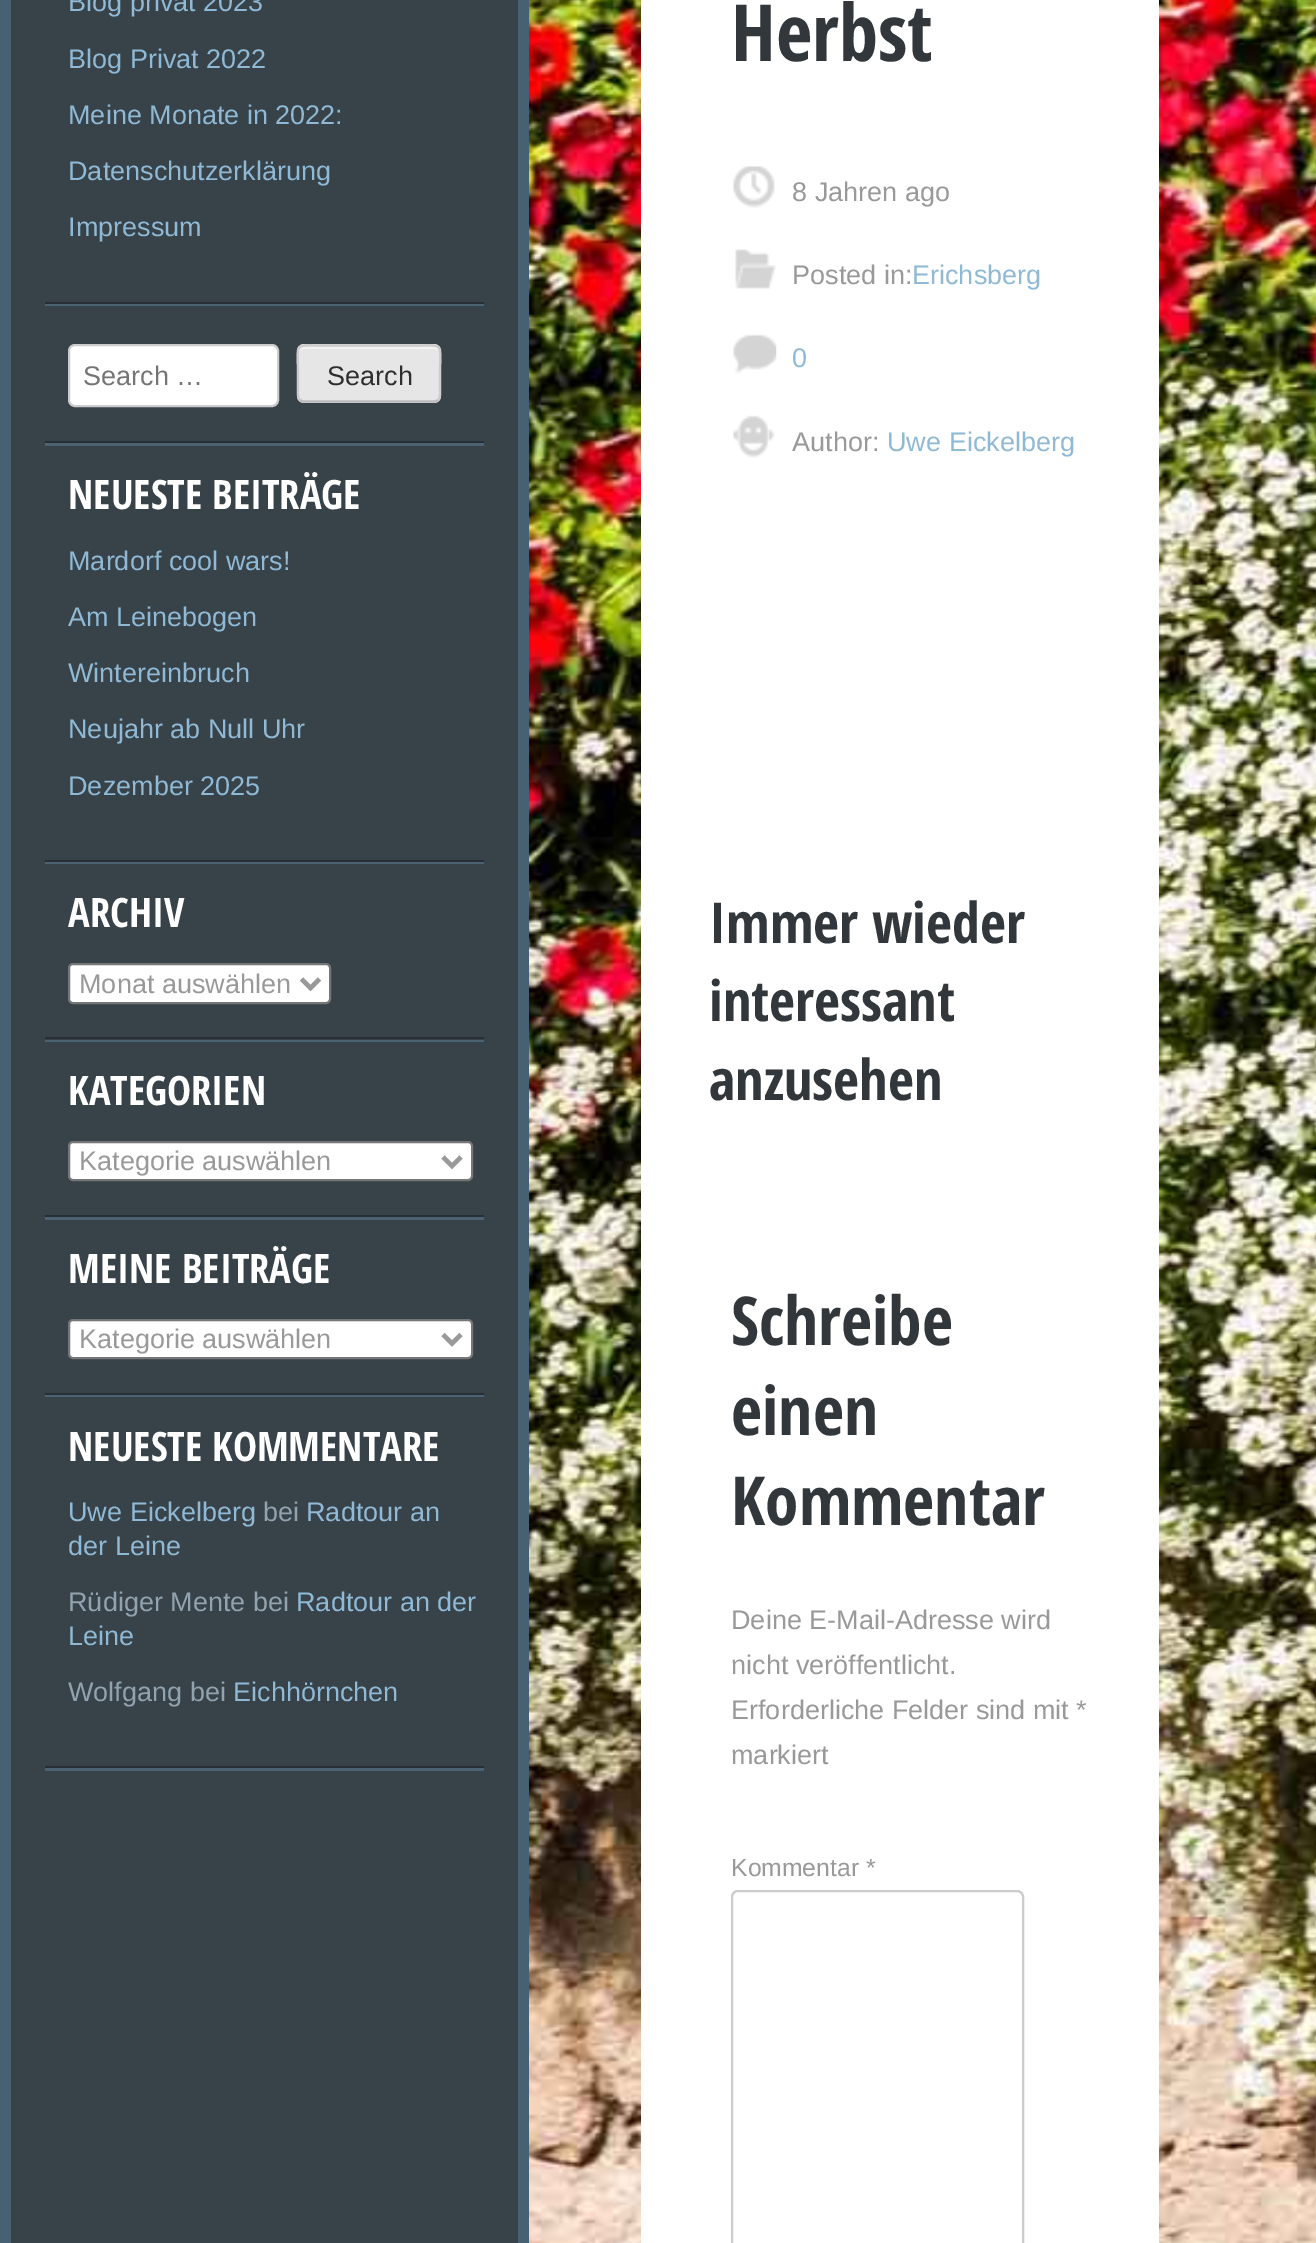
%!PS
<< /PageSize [1316 2243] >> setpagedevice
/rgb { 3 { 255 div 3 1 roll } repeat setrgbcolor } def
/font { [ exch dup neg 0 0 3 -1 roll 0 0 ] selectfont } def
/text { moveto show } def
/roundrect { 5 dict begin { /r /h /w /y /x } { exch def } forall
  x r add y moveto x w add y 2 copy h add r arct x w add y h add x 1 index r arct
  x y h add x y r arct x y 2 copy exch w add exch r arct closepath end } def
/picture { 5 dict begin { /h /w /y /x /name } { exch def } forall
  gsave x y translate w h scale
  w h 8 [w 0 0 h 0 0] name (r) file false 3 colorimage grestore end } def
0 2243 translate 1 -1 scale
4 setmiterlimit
255 255 255 rgb
0 0 1316 2243 rectfill
(img_01.rgb) 529 0 787 2243 picture
56 66 73 rgb
11 0 507 2243 rectfill
71 97 114 rgb
518 0 11 2243 rectfill
0 0 11 2243 rectfill
75 98 114 rgb
45 304 moveto 0 2 rlineto 439 0 rlineto 0 -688 rlineto 0 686 rlineto closepath fill
39 47 52 rgb
45 302 439 2 rectfill
75 98 114 rgb
45 443 moveto 0 3 rlineto 439 0 rlineto 0 -106 rlineto 0 103 rlineto closepath fill
39 47 52 rgb
45 441 439 2 rectfill
255 255 255 rgb
69 345 209 61 6 roundrect gsave fill grestore
204 204 204 rgb
2 setlinewidth
stroke
230 230 230 rgb
297 344 144 59 7 roundrect fill
243 243 243 rgb
304 349 moveto 130 0 rlineto 3 0 5 2 5 4 rcurveto 0 -1 rlineto 0 -3 -2 -5 -5 -5 rcurveto -130 0 rlineto -3 0 -5 2 -5 5 rcurveto 0 1 rlineto 0 -2 2 -4 5 -4 rcurveto closepath fill
187 187 187 rgb
2.2 setlinewidth
438 400 moveto -3 1.5 rlineto -132 0 rlineto -3 -1.5 rlineto stroke
204 204 204 rgb
300 400 moveto -3 -3 -2 -8.5 -2 -11.5 rcurveto 0 -15 rlineto 0 -32.5 -5.5 -28 27.5 -28 rcurveto 87 0 rlineto 33 0 27.5 -4.5 27.5 28 rcurveto 0 15 rlineto 0 3 1 8.5 -2 11.5 rcurveto stroke
75 98 114 rgb
45 862 moveto 0 2 rlineto 439 0 rlineto 0 -385 rlineto 0 383 rlineto closepath fill
39 47 52 rgb
45 860 439 2 rectfill
75 98 114 rgb
45 1040 moveto 0 2 rlineto 439 0 rlineto 0 -144 rlineto 0 142 rlineto closepath fill
39 47 52 rgb
45 1037 439 2 rectfill
255 255 255 rgb
69 964 261 39 4 roundrect gsave fill grestore
118 118 118 rgb
2 setlinewidth
stroke
153 153 153 rgb
4.5 setlinewidth
301.5 979 moveto 9 9 rlineto 9 -9 rlineto stroke
75 98 114 rgb
45 1217 moveto 0 3 rlineto 439 0 rlineto 0 -144 rlineto 0 141 rlineto closepath fill
39 47 52 rgb
45 1215 439 2 rectfill
255 255 255 rgb
69 1142 403 38 4 roundrect gsave fill grestore
118 118 118 rgb
2 setlinewidth
stroke
153 153 153 rgb
4.5 setlinewidth
443 1157 moveto 9 9 rlineto 9 -9 rlineto stroke
75 98 114 rgb
45 1395 moveto 0 2 rlineto 439 0 rlineto 0 -144 rlineto 0 142 rlineto closepath fill
39 47 52 rgb
45 1393 439 2 rectfill
255 255 255 rgb
69 1320 403 38 4 roundrect gsave fill grestore
118 118 118 rgb
2 setlinewidth
stroke
153 153 153 rgb
4.5 setlinewidth
443 1334.5 moveto 9 9 rlineto 9 -9 rlineto stroke
75 98 114 rgb
45 1768 moveto 0 3 rlineto 439 0 rlineto 0 -340 rlineto 0 337 rlineto closepath fill
39 47 52 rgb
45 1766 439 2 rectfill
255 255 255 rgb
641 0 518 2243 rectfill
(img_02.rgb) 733 166 42 42 picture
(img_03.rgb) 735 249 41 40 picture
(img_04.rgb) 733 334 44 40 picture
(img_05.rgb) 733 415 42 43 picture
204 204 204 rgb
2 setlinewidth
732 1891 291 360 6 roundrect stroke
/LiberationSans-Regular 27 font
143 185 212 rgb
(Blog privat 2023) 68 11 text
(Blog Privat 2022) 68 68 text
(Meine Monate in 2022:) 68 124 text
(Datenschutzerklärung) 68 180 text
(Impressum) 68 236 text
117 117 117 rgb
(Search …) 83 385 text
46 46 46 rgb
(Search) 327 385 text
/OpenSansCondensed-Bold 40.5 font
255 255 255 rgb
(NEUESTE BEITRÄGE) 68 509 text
/LiberationSans-Regular 27 font
143 185 212 rgb
(Mardorf cool wars!) 68 570 text
(Am Leinebogen) 68 626 text
(Wintereinbruch) 68 682 text
(Neujahr ab Null Uhr) 68 738 text
(Dezember 2025) 68 795 text
/OpenSansCondensed-Bold 40.5 font
255 255 255 rgb
(ARCHIV) 68 927 text
/LiberationSans-Regular 27 font
153 153 153 rgb
(Monat auswählen) 79 993 text
/OpenSansCondensed-Bold 40.5 font
255 255 255 rgb
(KATEGORIEN) 68 1105 text
/LiberationSans-Regular 27 font
153 153 153 rgb
(Kategorie auswählen) 79 1170 text
/OpenSansCondensed-Bold 40.5 font
255 255 255 rgb
(MEINE BEITRÄGE) 68 1283 text
/LiberationSans-Regular 27 font
153 153 153 rgb
(Kategorie auswählen) 79 1348 text
/OpenSansCondensed-Bold 40.5 font
255 255 255 rgb
(NEUESTE KOMMENTARE) 68 1461 text
/LiberationSans-Regular 27 font
143 185 212 rgb
(Uwe Eickelberg) 68 1521 text
145 163 175 rgb
(bei) 263 1521 text
143 185 212 rgb
(Radtour an) 306 1521 text
(der Leine) 68 1555 text
145 163 175 rgb
(Rüdiger Mente bei) 68 1611 text
143 185 212 rgb
(Radtour an der) 296 1611 text
(Leine) 68 1645 text
145 163 175 rgb
(Wolfgang bei) 68 1701 text
143 185 212 rgb
(Eichhörnchen) 233 1701 text
/OpenSansCondensed-Bold 79 font
49 55 59 rgb
(Herbst) 731 61 text
/LiberationSans-Regular 27 font
153 153 153 rgb
(8 Jahren ago) 792 201 text
(Posted in:) 792 284 text
143 185 212 rgb
(Erichsberg) 912 284 text
(0) 792 367 text
153 153 153 rgb
(Author:) 792 451 text
143 185 212 rgb
(Uwe Eickelberg) 887 451 text
/OpenSansCondensed-Bold 56.25 font
49 55 59 rgb
(Immer wieder) 709 943 text
(interessant) 709 1021 text
(anzusehen) 709 1100 text
/OpenSansCondensed-Bold 67.5 font
(Schreibe) 731 1345 text
(einen) 731 1435 text
(Kommentar) 731 1525 text
/LiberationSans-Regular 27 font
153 153 153 rgb
(Deine E-Mail-Adresse wird) 731 1629 text
(nicht veröffentlicht.) 731 1674 text
(Erforderliche Felder sind mit *) 731 1719 text
(markiert) 731 1764 text
/LiberationSans-Regular 24.75 font
(Kommentar *) 731 1876 text
showpage
